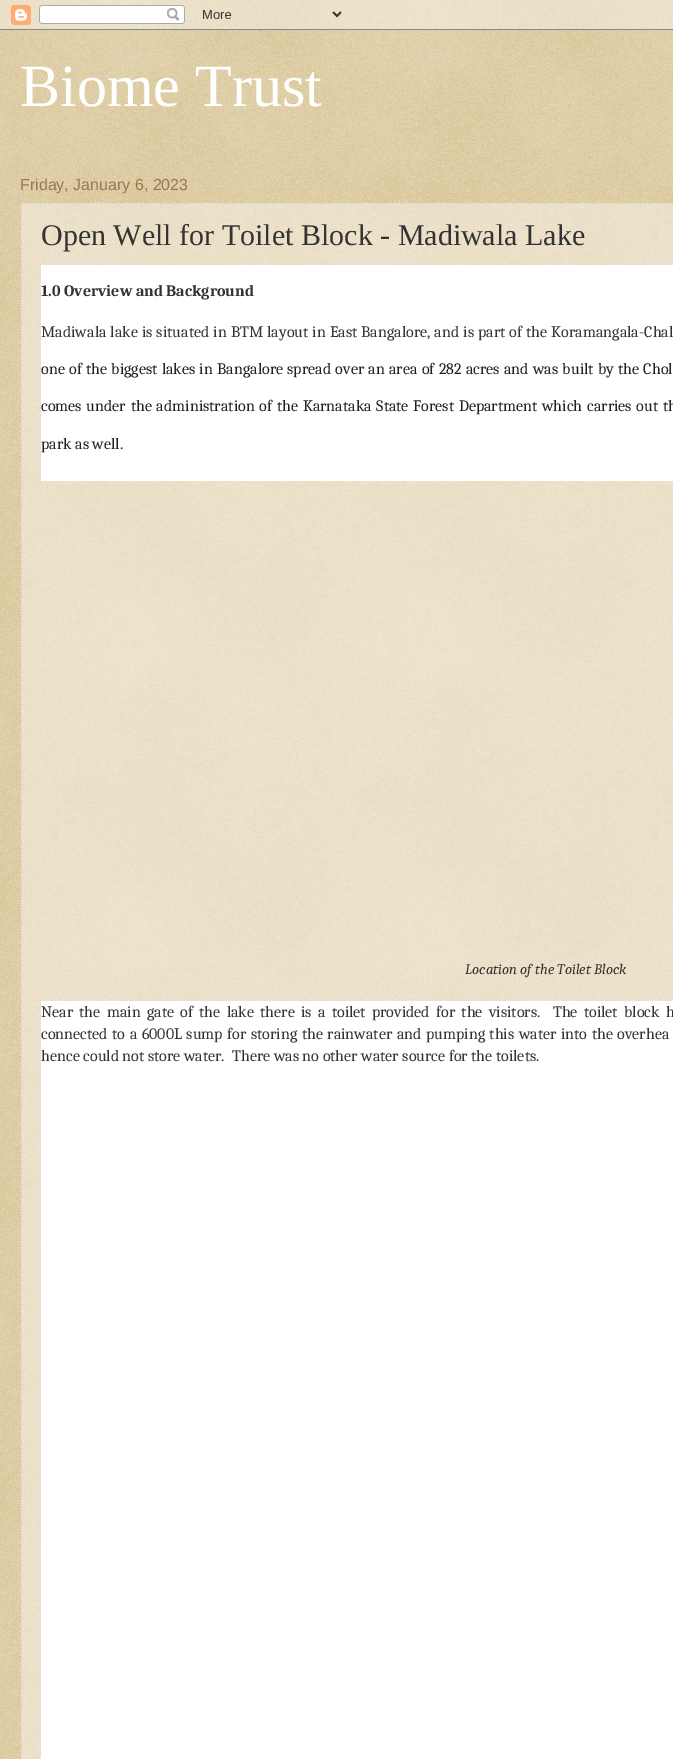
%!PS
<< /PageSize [673 1759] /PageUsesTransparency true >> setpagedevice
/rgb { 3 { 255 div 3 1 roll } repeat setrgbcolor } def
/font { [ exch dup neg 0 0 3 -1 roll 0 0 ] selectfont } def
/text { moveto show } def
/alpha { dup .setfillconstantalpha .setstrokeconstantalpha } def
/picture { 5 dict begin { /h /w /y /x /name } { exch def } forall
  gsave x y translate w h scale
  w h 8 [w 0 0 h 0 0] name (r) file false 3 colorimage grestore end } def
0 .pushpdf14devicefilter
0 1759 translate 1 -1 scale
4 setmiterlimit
192 161 84 rgb
0 0 673 1759 rectfill
(img_01.rgb) 0 0 673 1759 picture
(img_02.rgb) 0 0 673 30 picture
0.4 alpha
255 255 255 rgb
20 202 653 1557 rectfill
1 alpha
204 187 153 rgb
[1 1] 0 setdash
20 202.5 moveto 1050 0 rlineto stroke
20.5 202 moveto 0 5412 rlineto stroke
255 255 255 rgb
41 265 632 194 rectfill
41 459 632 22 rectfill
41 1001 632 758 rectfill
/LiberationSerif-Regular 60 font
(Biome Trust) 20 106 text
/LiberationSans-Regular 16 font
153 119 85 rgb
(Friday, January 6, 2023) 20 190 text
/LiberationSerif-Regular 30 font
51 51 51 rgb
(Open Well for Toilet Block - Madiwala Lake) 41 245 text
/Caladea-Bold 16 font
(1.0 Overview and Background) 41 296 text
/Caladea-Regular 16 font
41 337 moveto 0.5 0 32 (Madiwala lake is situated in BTM layout in East Bangalore, and is part of the Koramangala-Chal) widthshow
32 33 34 rgb
41 374 moveto 0.75 0 32 (one of the biggest lakes in Bangalore spread over an area of 282 acres and was built by the Chol) widthshow
41 411 moveto 1.2 0 32 (comes under the administration of the Karnataka State Forest Department which carries out th) widthshow
(park as well.) 41 449 text
/Caladea-Italic 14.75 font
51 51 51 rgb
(Location of the Toilet Block) 465 974 text
/Caladea-Regular 16 font
41 1017 moveto 2.75 0 32 (Near the main gate of the lake there is a toilet provided for the visitors.  The toilet block h) widthshow
41 1039 moveto 1 0 32 (connected to a 6000L sump for storing the rainwater and pumping this water into the overhea) widthshow
(hence could not store water.  There was no other water source for the toilets.) 41 1061 text
.poppdf14devicefilter showpage
